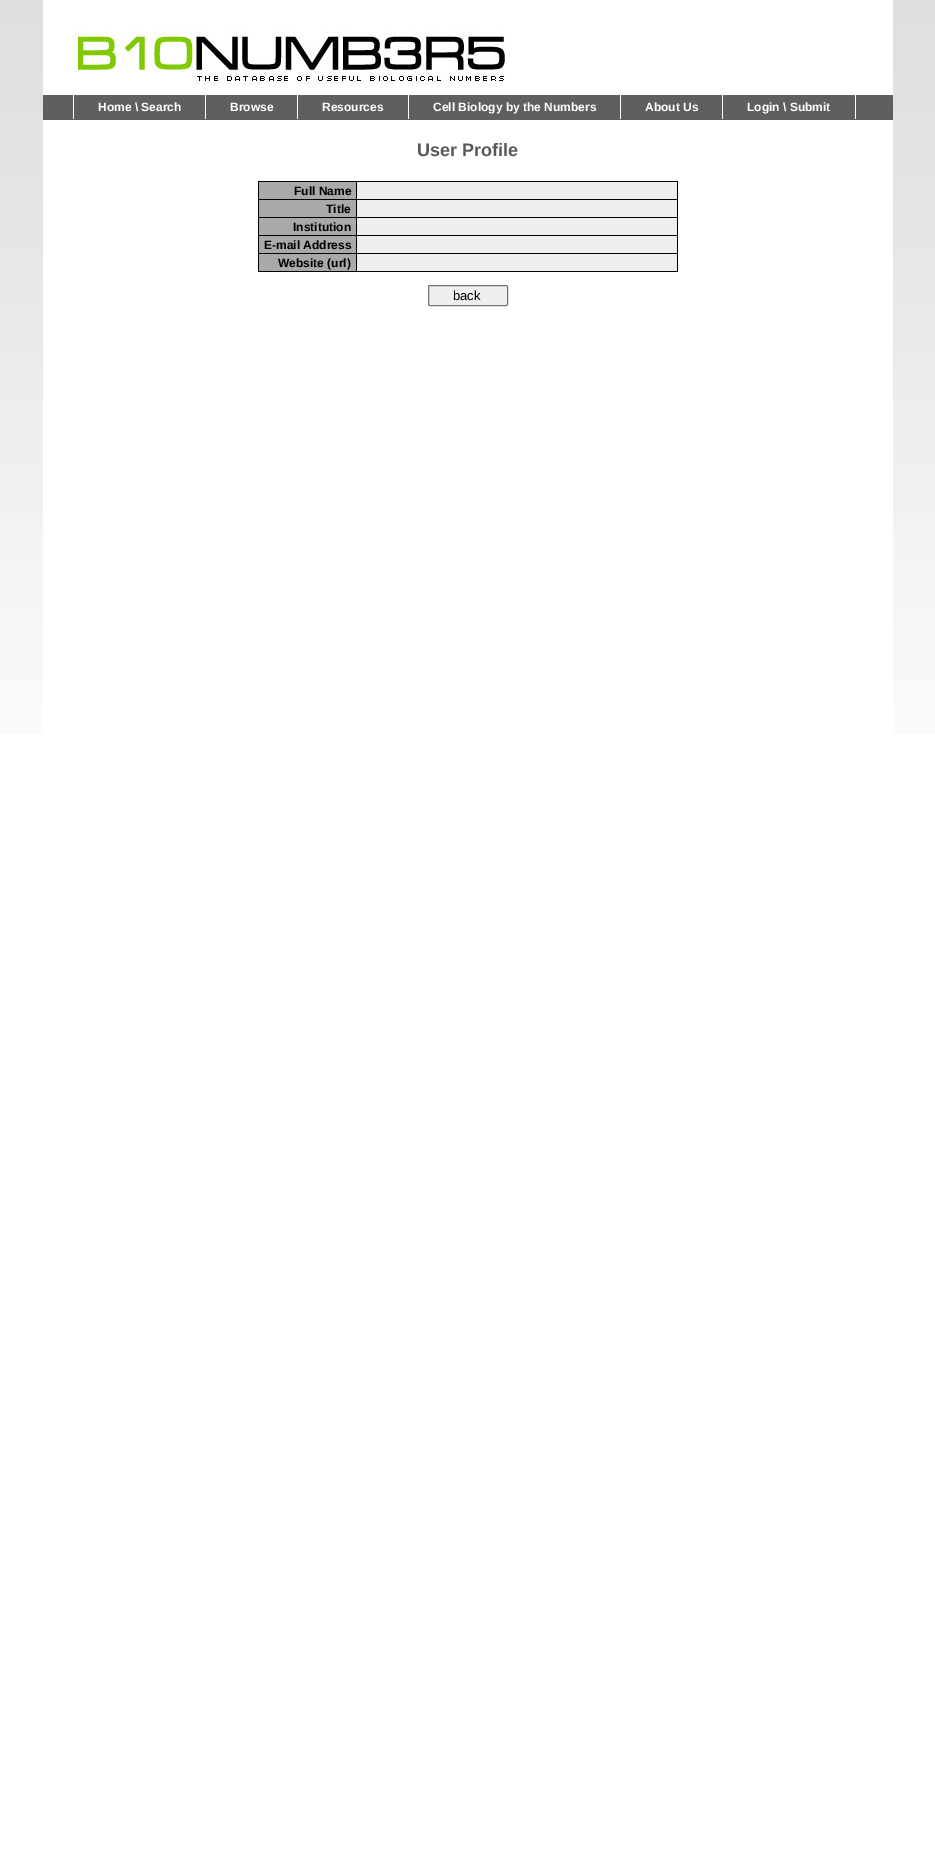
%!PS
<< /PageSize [935 1853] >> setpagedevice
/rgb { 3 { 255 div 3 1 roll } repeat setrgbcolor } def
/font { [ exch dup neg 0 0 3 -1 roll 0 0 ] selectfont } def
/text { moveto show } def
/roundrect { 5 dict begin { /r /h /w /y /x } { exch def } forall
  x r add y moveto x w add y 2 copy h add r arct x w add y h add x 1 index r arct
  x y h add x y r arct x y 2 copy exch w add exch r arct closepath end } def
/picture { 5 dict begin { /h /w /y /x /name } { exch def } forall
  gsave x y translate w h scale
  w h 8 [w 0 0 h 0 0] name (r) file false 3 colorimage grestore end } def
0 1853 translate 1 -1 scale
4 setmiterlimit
255 255 255 rgb
0 0 935 1853 rectfill
(img_01.rgb) 0 0 935 734 picture
43 0 850 734 rectfill
(img_02.rgb) 73 30 432 55 picture
95 95 95 rgb
43 95 850 25 rectfill
255 255 255 rgb
73 95 1 24 rectfill
205 95 1 24 rectfill
297 95 1 24 rectfill
408 95 1 24 rectfill
620 95 1 24 rectfill
855 95 1 24 rectfill
722 95 1 24 rectfill
169 169 169 rgb
259 182 97 17 rectfill
0 0 0 rgb
356 181 322 1 rectfill
356 199 322 1 rectfill
356 217 322 1 rectfill
356 235 322 1 rectfill
356 253 322 1 rectfill
677 253 1 19 rectfill
356 271 322 1 rectfill
356 253 1 19 rectfill
258 253 99 1 rectfill
356 235 1 19 rectfill
258 235 99 1 rectfill
356 217 1 19 rectfill
258 217 99 1 rectfill
356 199 1 19 rectfill
258 199 99 1 rectfill
356 181 1 19 rectfill
258 181 99 1 rectfill
258 271 99 1 rectfill
258 253 1 19 rectfill
258 235 1 19 rectfill
258 217 1 19 rectfill
258 199 1 19 rectfill
258 181 1 19 rectfill
238 238 238 rgb
357 182 320 17 rectfill
0 0 0 rgb
677 235 1 19 rectfill
677 217 1 19 rectfill
677 199 1 19 rectfill
677 181 1 19 rectfill
169 169 169 rgb
259 200 97 17 rectfill
238 238 238 rgb
357 200 320 17 rectfill
169 169 169 rgb
259 218 97 17 rectfill
238 238 238 rgb
357 218 320 17 rectfill
169 169 169 rgb
259 236 97 17 rectfill
238 238 238 rgb
357 236 320 17 rectfill
169 169 169 rgb
259 254 97 17 rectfill
238 238 238 rgb
357 254 320 17 rectfill
239 239 239 rgb
428.5 285.5 79 20 1.5 roundrect gsave fill grestore
118 118 118 rgb
stroke
/LiberationSans-Bold 12 font
255 255 255 rgb
(Home \\ Search) 98 111 text
(Browse) 230 111 text
(Resources) 322 111 text
(Cell Biology by the Numbers) 433 111 text
(About Us) 645 111 text
(Login \\ Submit) 747 111 text
/LiberationSans-Bold 18 font
88 88 88 rgb
(User Profile) 417 156 text
/LiberationSans-Bold 12 font
0 0 0 rgb
(Full Name) 294 195 text
(Title) 326 213 text
(Institution) 293 231 text
(E-mail Address) 264 249 text
(Website \(url\)) 278 267 text
/LiberationSans-Regular 13 font
(back) 453 300 text
showpage
